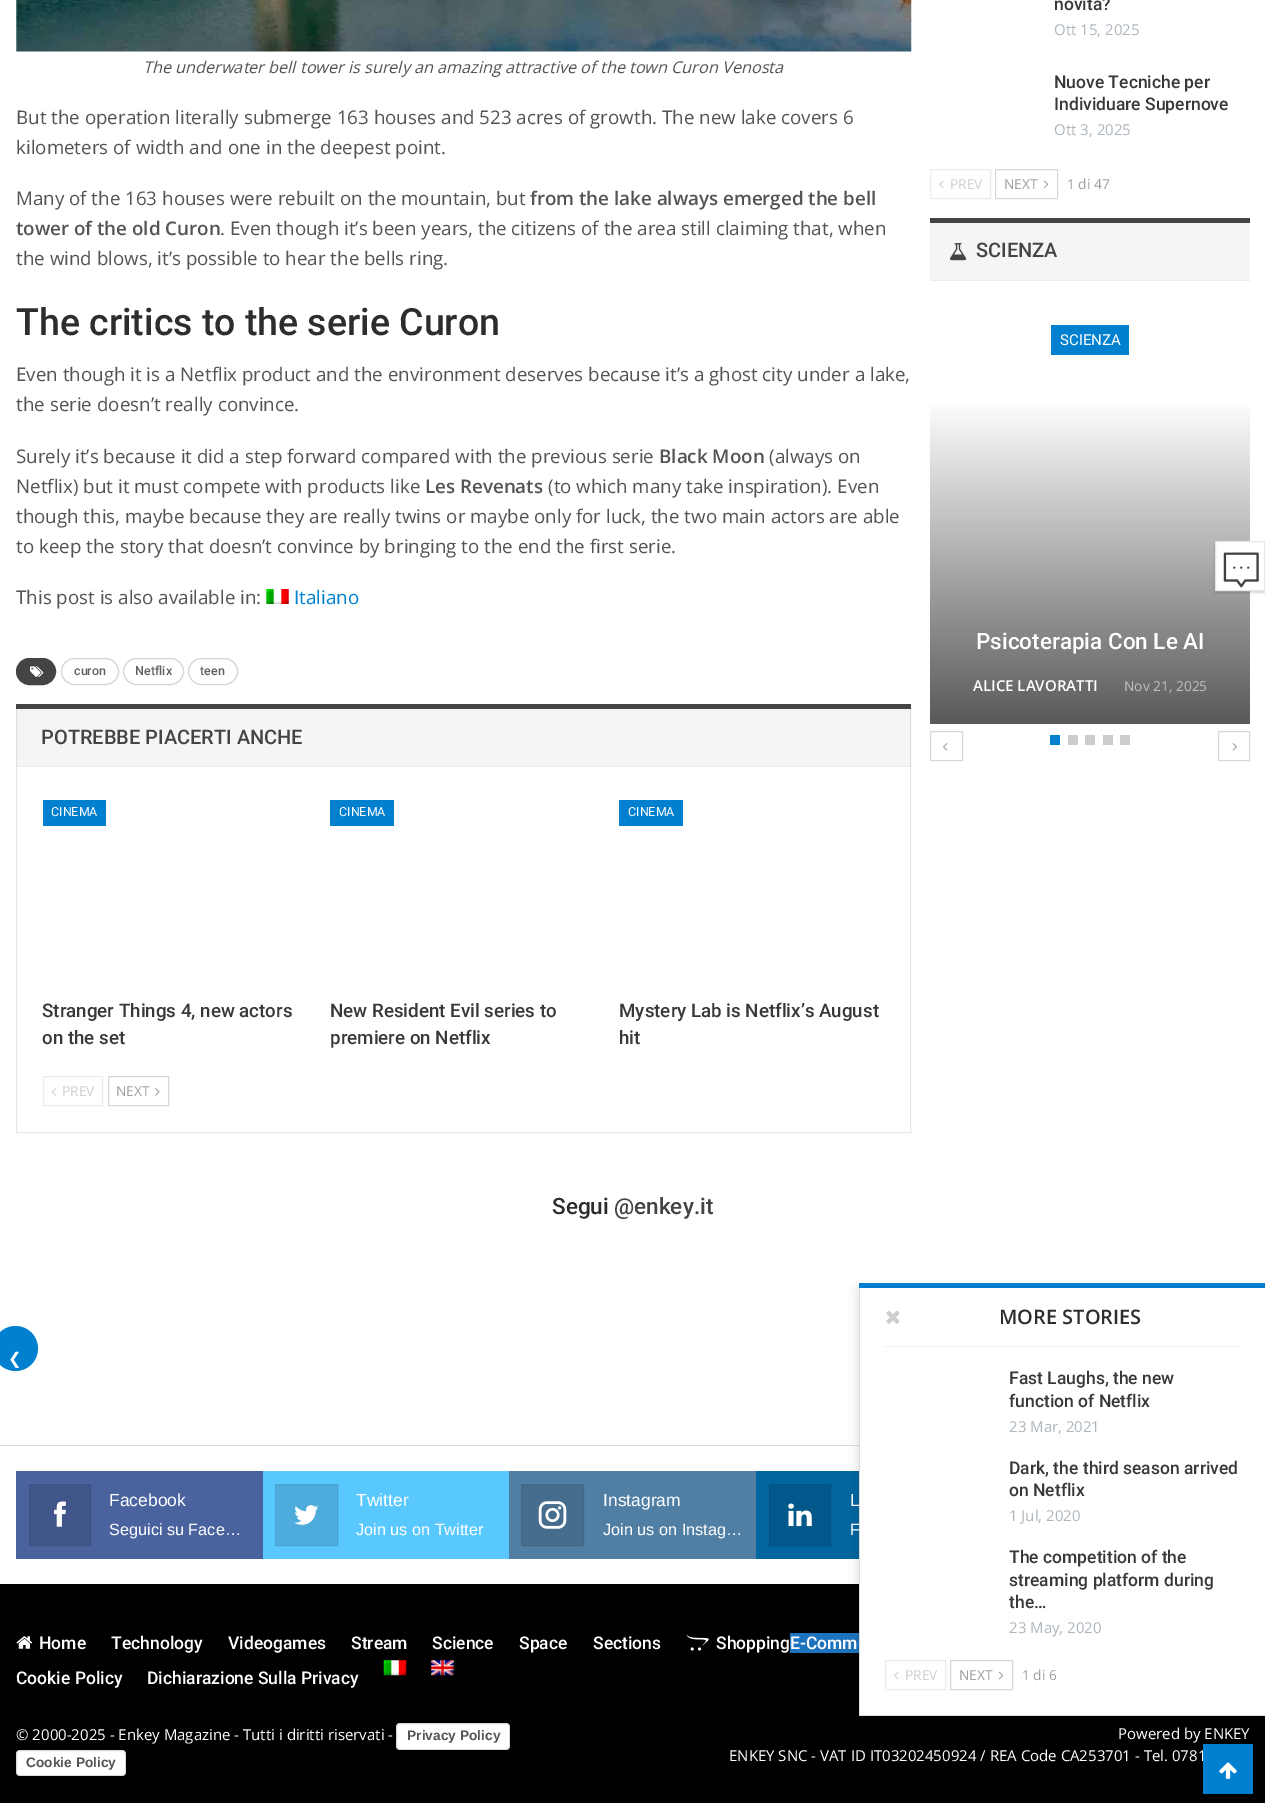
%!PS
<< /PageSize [1265 1803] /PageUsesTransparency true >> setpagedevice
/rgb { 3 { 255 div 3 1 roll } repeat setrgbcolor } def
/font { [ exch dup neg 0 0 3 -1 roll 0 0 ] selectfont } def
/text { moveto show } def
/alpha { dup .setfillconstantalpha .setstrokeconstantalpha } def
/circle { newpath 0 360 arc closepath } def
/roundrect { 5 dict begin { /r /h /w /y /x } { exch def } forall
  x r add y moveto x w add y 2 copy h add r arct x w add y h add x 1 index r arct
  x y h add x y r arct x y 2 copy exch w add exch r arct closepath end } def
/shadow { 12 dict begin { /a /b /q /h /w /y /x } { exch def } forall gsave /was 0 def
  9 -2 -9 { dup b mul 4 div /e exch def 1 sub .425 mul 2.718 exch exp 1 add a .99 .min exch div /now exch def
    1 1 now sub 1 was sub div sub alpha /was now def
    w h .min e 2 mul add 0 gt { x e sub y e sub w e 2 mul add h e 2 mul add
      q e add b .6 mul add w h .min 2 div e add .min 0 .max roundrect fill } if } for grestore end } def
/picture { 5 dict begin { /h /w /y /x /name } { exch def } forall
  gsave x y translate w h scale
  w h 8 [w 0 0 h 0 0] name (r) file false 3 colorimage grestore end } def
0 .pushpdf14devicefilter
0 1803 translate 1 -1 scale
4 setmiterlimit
255 255 255 rgb
0 0 1265 1803 rectfill
(img_01.rgb) 16 0 896 52 picture
(img_02.rgb) 266 589 23 15 picture
68 68 68 rgb
16.5 658.5 39 26 13 roundrect gsave fill grestore
stroke
(img_03.rgb) 30 666 14 11 picture
212 212 212 rgb
61.5 658.5 57 26 13 roundrect stroke
123.5 658.5 60 26 13 roundrect stroke
188.5 658.5 49 26 13 roundrect stroke
232 232 232 rgb
16.5 704.5 894 428 rectstroke
0.04 alpha
0 0 0 rgb
16 709 895 57 rectfill
1 alpha
68 68 68 rgb
16 704 895 5 rectfill
0.07 alpha
0 0 0 rgb
16 766 895 1 rectfill
1 alpha
0 128 206 rgb
43 800 63 26 rectfill
330 800 64 26 rectfill
619 800 64 26 rectfill
236 236 236 rgb
43.5 1076.5 59 29 rectstroke
(img_04.rgb) 51 1088 5 8 picture
216 216 216 rgb
108.5 1076.5 60 29 rectstroke
(img_05.rgb) 155 1088 5 8 picture
236 236 236 rgb
930.5 169.5 60 29 rectstroke
(img_06.rgb) 939 180 5 8 picture
216 216 216 rgb
995.5 169.5 62 29 rectstroke
(img_07.rgb) 1043 180 6 9 picture
245 245 245 rgb
930 223 320 57 rectfill
68 68 68 rgb
930 218 320 5 rectfill
(img_08.rgb) 949 243 18 18 picture
237 237 237 rgb
930 280 320 1 rectfill
0 128 206 rgb
1051 325 78 30 rectfill
gsave 930 405 moveto 320 0 rlineto 0 319 rlineto -320 0 rlineto closepath clip newpath
<< /ShadingType 2 /ColorSpace /DeviceRGB /Coords [1090 400 1090 724] /Extend [true true] /Function << /FunctionType 2 /Domain [0 1] /C0 [1 1 1] /C1 [0.349 0.349 0.349] /N 1 >> >> shfill grestore
216 216 216 rgb
930.5 731.5 32 29 rectstroke
(img_09.rgb) 942 743 6 8 picture
1218.5 731.5 31 29 rectstroke
(img_10.rgb) 1232 743 5 8 picture
0 128 206 rgb
1050 735 10 10 rectfill
204 204 204 rgb
1068 735 10 10 rectfill
1085 735 10 10 rectfill
1103 735 10 10 rectfill
1120 735 10 10 rectfill
0 128 206 rgb
15.5 1348.5 22.5 circle fill
0 0 0 rgb
0 1584 1265 219 rectfill
217 217 217 rgb
0 1445 859 1 rectfill
2 102 160 rgb
756 1471 103 88 rectfill
30 115 190 rgb
790 1633 69 20 rectfill
0 0 0 rgb
856 1289 407 430 0 5 0.1 shadow
255 255 255 rgb
860 1288 405 427 rectfill
221 221 221 rgb
859 1715 406 1 rectfill
859 1286 1 430 rectfill
0 128 206 rgb
859 1283 406 5 rectfill
240 240 240 rgb
885 1346 355 1 rectfill
(img_11.rgb) 886 1310 14 14 picture
236 236 236 rgb
885.5 1660.5 60 29 rectstroke
(img_12.rgb) 894 1672 5 8 picture
216 216 216 rgb
950.5 1660.5 62 29 rectstroke
(img_13.rgb) 998 1671 6 9 picture
74 99 159 rgb
16 1471 247 88 rectfill
64 85 137 rgb
29.5 1484.5 moveto 61 0 rlineto 0 61 rlineto -61 0 rlineto closepath gsave fill grestore
61 81 130 rgb
stroke
(img_14.rgb) 54 1501 12 26 picture
89 200 255 rgb
263 1471 246 88 rectfill
77 172 219 rgb
275.5 1484.5 moveto 62 0 rlineto 0 61 rlineto -62 0 rlineto closepath gsave fill grestore
73 163 208 rgb
stroke
(img_15.rgb) 294 1505 25 20 picture
81 127 164 rgb
509 1471 247 88 rectfill
70 109 141 rgb
521.5 1484.5 moveto 62 0 rlineto 0 61 rlineto -62 0 rlineto closepath gsave fill grestore
67 104 134 rgb
stroke
(img_16.rgb) 538 1501 29 28 picture
2 88 138 rgb
769.5 1484.5 moveto 61 0 rlineto 0 61 rlineto -61 0 rlineto closepath gsave fill grestore
2 84 131 rgb
stroke
(img_17.rgb) 788 1503 24 24 picture
(img_18.rgb) 16 1636 17 13 picture
(img_19.rgb) 686 1634 23 17 picture
(img_20.rgb) 383 1660 24 16 picture
(img_21.rgb) 431 1660 23 16 picture
255 255 255 rgb
396 1723 114 27 4 roundrect fill
0.15 alpha
0 0 0 rgb
396.5 1723.5 113 26 3.5 roundrect stroke
1 alpha
255 255 255 rgb
16 1750 110 26 4 roundrect fill
0.15 alpha
0 0 0 rgb
16.5 1750.5 109 25 3.5 roundrect stroke
1 alpha
1215 543 50 50 0 1 0.15 shadow
255 255 255 rgb
1215.5 541.5 moveto 49 0 rlineto 0 49 rlineto -49 0 rlineto closepath gsave fill grestore
230 230 230 rgb
stroke
(img_22.rgb) 1223 552 36 36 picture
/OpenSans-Italic 16.25 font
84 84 84 rgb
(The underwater bell tower is surely an amazing attractive of the town Curon Venosta) 143 73 text
/OpenSans-Regular 18.75 font
(But the operation literally submerge 163 houses and 523 acres of growth. The new lake covers 6) 16 124 text
(kilometers of width and one in the deepest point.) 16 154 text
(Many of the 163 houses were rebuilt on the mountain, but) 16 205 text
/OpenSans-SemiBold 18.75 font
(from the lake always emerged the bell) 530 205 text
(tower of the old Curon) 16 235 text
/OpenSans-Regular 18.75 font
(. Even though it’s been years, the citizens of the area still claiming that, when) 220 235 text
(the wind blows, it’s possible to hear the bells ring.) 16 265 text
/Roboto-Medium 37.5 font
45 45 45 rgb
(The critics to the serie Curon) 16 335 text
/OpenSans-Regular 18.75 font
84 84 84 rgb
(Even though it is a Netflix product and the environment deserves because it’s a ghost city under a lake,) 16 381 text
(the serie doesn’t really convince.) 16 411 text
(Surely it’s because it did a step forward compared with the previous serie) 16 463 text
/OpenSans-SemiBold 18.75 font
(Black Moon) 659 463 text
/OpenSans-Regular 18.75 font
(\(always on) 769 463 text
(Netflix\) but it must compete with products like) 16 493 text
/OpenSans-SemiBold 18.75 font
(Les Revenats) 425 493 text
/OpenSans-Regular 18.75 font
(\(to which many take inspiration\). Even) 548 493 text
(though this, maybe because they are really twins or maybe only for luck, the two main actors are able) 16 523 text
(to keep the story that doesn’t convince by bringing to the end the first serie.) 16 553 text
(This post is also available in:) 16 604 text
0 128 206 rgb
(Italiano) 294 604 text
/Roboto-Medium 12.5 font
95 95 95 rgb
(curon) 74 675 text
(Netflix) 135 675 text
(teen) 200 675 text
/Roboto-Medium 20 font
68 68 68 rgb
(POTREBBE PIACERTI ANCHE) 41 744 text
/Roboto-Regular 12.5 font
255 255 255 rgb
(CINEMA) 51 816 text
/Roboto-Medium 18.75 font
56 56 56 rgb
(Stranger Things 4, new actors) 42 1017 text
(on the set) 42 1044 text
/Roboto-Regular 12.5 font
255 255 255 rgb
(CINEMA) 339 816 text
/Roboto-Medium 18.75 font
56 56 56 rgb
(New Resident Evil series to) 330 1017 text
(premiere on Netflix) 330 1044 text
/Roboto-Regular 12.5 font
255 255 255 rgb
(CINEMA) 628 816 text
/Roboto-Medium 18.75 font
56 56 56 rgb
(Mystery Lab is Netflix’s August) 619 1017 text
(hit) 619 1044 text
/OpenSans-Regular 13.75 font
207 207 207 rgb
(PREV) 62 1096 text
158 158 158 rgb
(NEXT) 116 1096 text
/Roboto-Medium 17.5 font
56 56 56 rgb
(novità?) 1054 10 text
/OpenSans-Regular 15 font
173 181 189 rgb
(Ott 15, 2025) 1054 35 text
/Roboto-Medium 17.5 font
56 56 56 rgb
(Nuove Tecniche per) 1054 88 text
(Individuare Supernove) 1054 110 text
/OpenSans-Regular 15 font
173 181 189 rgb
(Ott 3, 2025) 1054 135 text
/OpenSans-Regular 13.75 font
207 207 207 rgb
(PREV) 950 189 text
158 158 158 rgb
(NEXT) 1004 189 text
(1 di 47) 1067 189 text
/Roboto-Medium 20 font
68 68 68 rgb
(SCIENZA) 976 257 text
/Roboto-Regular 15 font
255 255 255 rgb
(SCIENZA) 1060 345 text
/Roboto-Medium 22.5 font
(Psicoterapia Con Le AI) 976 649 text
/OpenSans-SemiBold 15 font
(ALICE LAVORATTI) 973 691 text
/OpenSans-Regular 13.75 font
192 192 192 rgb
(Nov 21, 2025) 1124 691 text
/Roboto-Medium 22.5 font
45 45 45 rgb
(Segui) 552 1214 text
68 68 68 rgb
(@enkey.it) 614 1214 text
/DejaVuSans-Regular 16.25 font
255 255 255 rgb
(❮) 8 1364 text
/OpenSans-SemiBold 20 font
45 45 45 rgb
(MORE STORIES) 999 1324 text
/Roboto-Medium 17.5 font
56 56 56 rgb
(Fast Laughs, the new) 1009 1384 text
(function of Netflix) 1009 1407 text
/OpenSans-Regular 15 font
173 181 189 rgb
(23 Mar, 2021) 1009 1432 text
/Roboto-Medium 17.5 font
56 56 56 rgb
(Dark, the third season arrived) 1009 1474 text
(on Netflix) 1009 1496 text
/OpenSans-Regular 15 font
173 181 189 rgb
(1 Jul, 2020) 1009 1521 text
/Roboto-Medium 17.5 font
56 56 56 rgb
(The competition of the) 1009 1563 text
(streaming platform during) 1009 1586 text
(the…) 1009 1608 text
/OpenSans-Regular 15 font
173 181 189 rgb
(23 May, 2020) 1009 1633 text
/OpenSans-Regular 13.75 font
207 207 207 rgb
(PREV) 905 1680 text
158 158 158 rgb
(NEXT) 959 1680 text
(1 di 6) 1022 1680 text
/LiberationSans-Regular 17.5 font
255 255 255 rgb
(Facebook) 109 1506 text
/LiberationSans-Regular 16.25 font
(Seguici su Face…) 109 1535 text
/LiberationSans-Regular 17.5 font
(Twitter) 356 1506 text
/LiberationSans-Regular 16.25 font
(Join us on Twitter) 356 1535 text
/LiberationSans-Regular 17.5 font
(Instagram) 603 1506 text
/LiberationSans-Regular 16.25 font
(Join us on Instag…) 603 1535 text
/LiberationSans-Regular 17.5 font
(L) 850 1506 text
/LiberationSans-Regular 16.25 font
(F) 850 1535 text
/Roboto-Medium 17.5 font
(Home) 39 1649 text
(Technology) 111 1649 text
(Videogames) 228 1649 text
(Stream) 351 1649 text
(Science) 432 1649 text
(Space) 519 1649 text
(Sections) 593 1649 text
(Shopping) 716 1649 text
(E-Comm) 790 1649 text
(Cookie Policy) 16 1684 text
(Dichiarazione Sulla Privacy) 147 1684 text
/OpenSans-Regular 15 font
(© 2000-2025 - Enkey Magazine - Tutti i diritti riservati -) 16 1740 text
/LiberationSans-Bold 13.75 font
84 84 84 rgb
(Privacy Policy) 407 1740 text
(Cookie Policy) 26 1767 text
/OpenSans-Regular 15 font
255 255 255 rgb
(Powered by ENKEY) 1118 1739 text
(ENKEY SNC - VAT ID IT03202450924 / REA Code CA253701 - Tel. 0781) 729 1761 text
0 128 206 rgb
1203 1744 50 50 rectfill
(img_23.rgb) 1219 1762 18 17 picture
.poppdf14devicefilter showpage
